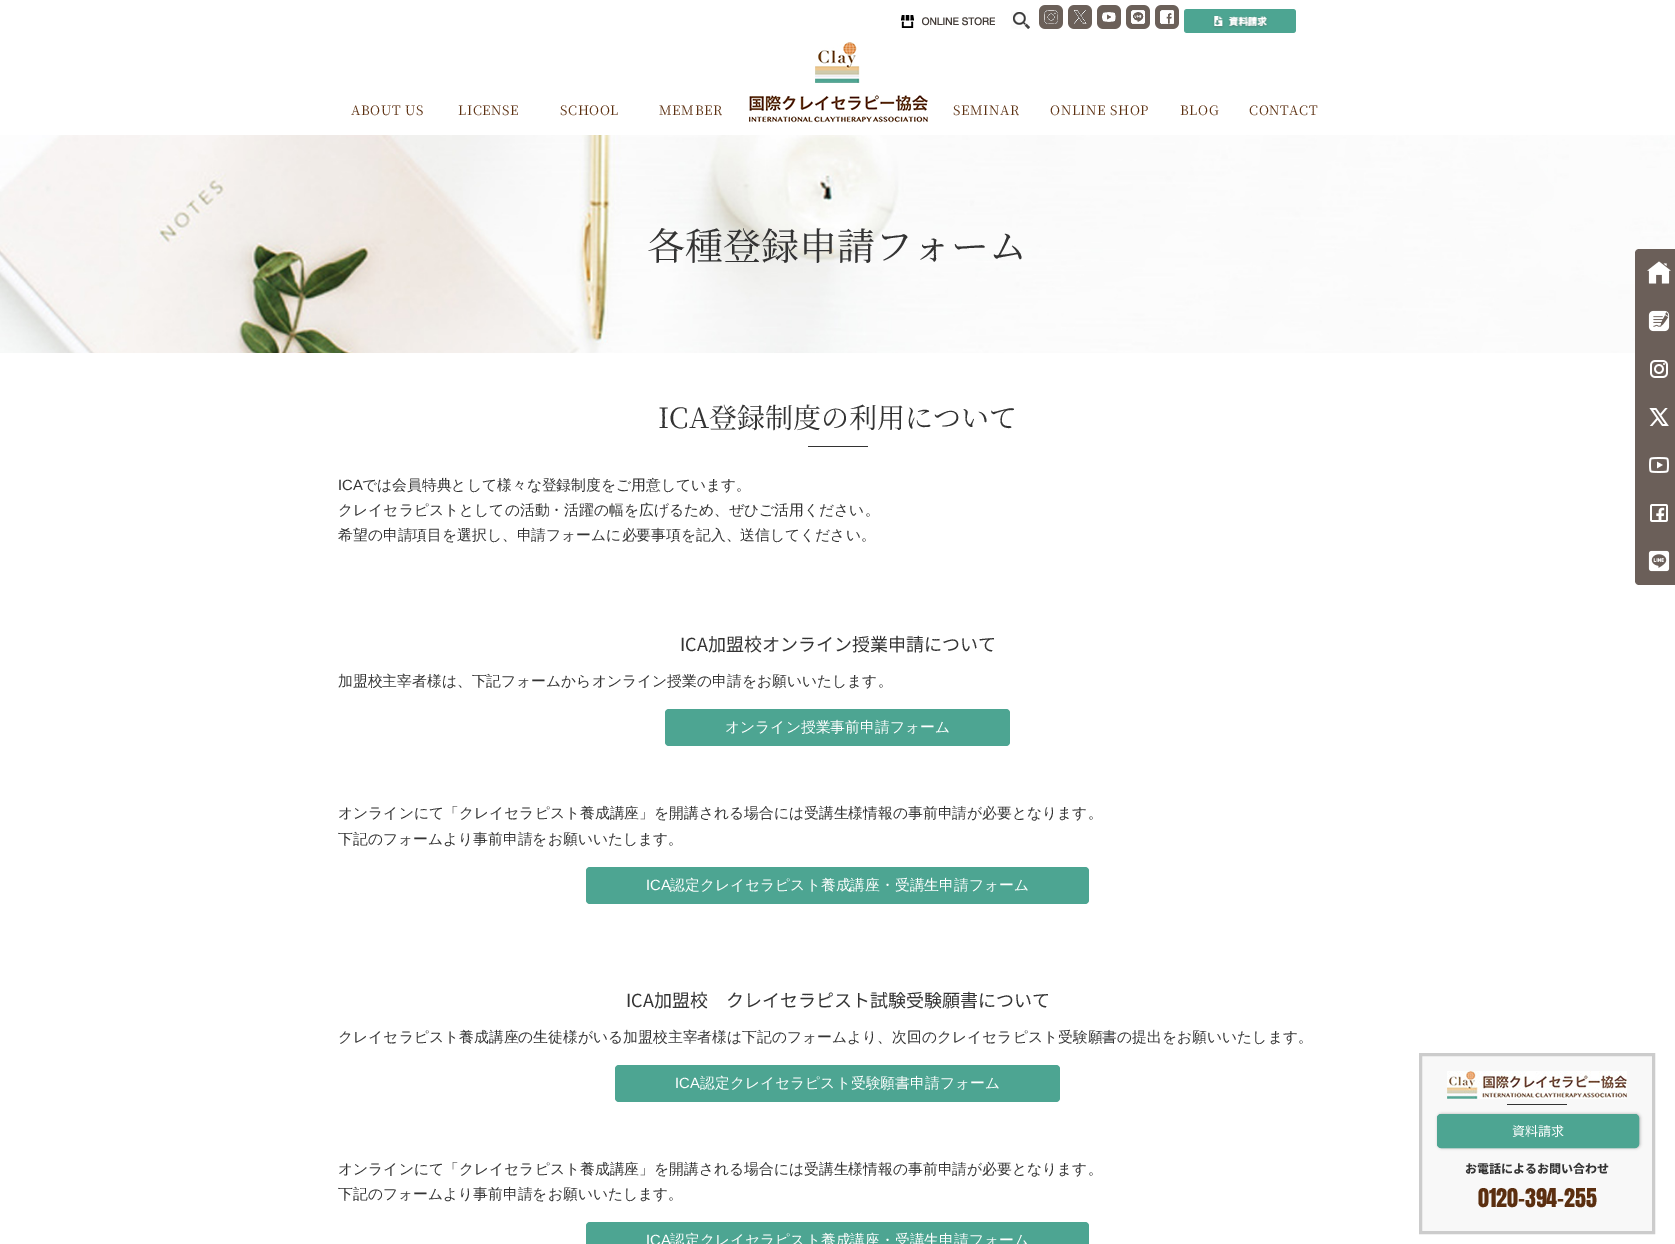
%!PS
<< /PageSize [1675 1244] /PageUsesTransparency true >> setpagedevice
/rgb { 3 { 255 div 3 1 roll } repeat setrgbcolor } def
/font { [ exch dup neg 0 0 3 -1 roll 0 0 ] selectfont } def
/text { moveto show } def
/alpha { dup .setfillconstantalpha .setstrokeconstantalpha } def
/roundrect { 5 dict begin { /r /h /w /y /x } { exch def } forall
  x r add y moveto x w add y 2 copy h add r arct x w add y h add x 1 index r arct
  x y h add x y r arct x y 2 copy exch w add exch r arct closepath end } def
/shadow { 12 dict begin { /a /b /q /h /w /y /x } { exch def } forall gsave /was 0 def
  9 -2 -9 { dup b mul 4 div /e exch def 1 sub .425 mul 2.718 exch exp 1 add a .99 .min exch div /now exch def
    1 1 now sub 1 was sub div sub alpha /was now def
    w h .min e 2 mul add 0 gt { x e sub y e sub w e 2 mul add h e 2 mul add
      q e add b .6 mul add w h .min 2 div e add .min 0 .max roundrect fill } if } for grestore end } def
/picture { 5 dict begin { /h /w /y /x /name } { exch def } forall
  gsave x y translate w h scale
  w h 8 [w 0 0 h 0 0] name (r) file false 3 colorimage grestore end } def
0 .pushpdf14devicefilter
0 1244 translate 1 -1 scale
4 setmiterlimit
255 255 255 rgb
0 0 1675 1244 rectfill
(img_01.rgb) 901 15 94 13 picture
(img_02.rgb) 1011 10 19 19 picture
(img_03.rgb) 1039 5 24 24 picture
(img_04.rgb) 1068 5 24 24 picture
(img_05.rgb) 1097 5 24 24 picture
(img_06.rgb) 1126 5 24 24 picture
(img_07.rgb) 1155 5 24 24 picture
(img_08.rgb) 1184 9 112 24 picture
(img_09.rgb) 815 42 45 41 picture
(img_10.rgb) 749 95 179 28 picture
(img_11.rgb) 0 135 1675 218 picture
51 51 51 rgb
808 446 60 1 rectfill
77 165 146 rgb
665 709 345 37 4 roundrect fill
586 867 503 37 4 roundrect fill
615 1065 445 37 4 roundrect fill
586 1222 503 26 4 roundrect fill
107 95 89 rgb
1639 249 moveto 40 0 rlineto 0 48 rlineto -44 0 rlineto 0 -44 rlineto 0 -2 2 -4 4 -4 rcurveto closepath fill
(img_12.rgb) 1647 261 24 23 picture
1635 297 40 240 rectfill
(img_13.rgb) 1648 310 22 22 picture
(img_14.rgb) 1650 360 18 18 picture
(img_15.rgb) 1649 408 20 18 picture
(img_16.rgb) 1649 457 20 16 picture
(img_17.rgb) 1650 504 18 18 picture
1635 537 moveto 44 0 rlineto 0 48 rlineto -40 0 rlineto -2 0 -4 -2 -4 -4 rcurveto closepath fill
(img_18.rgb) 1648 550 22 22 picture
248 248 248 rgb
1420.5 1054.5 moveto 233 0 rlineto 0 178 rlineto -233 0 rlineto closepath gsave fill grestore
204 204 204 rgb
3 setlinewidth
stroke
(img_19.rgb) 1447 1071 180 28 picture
51 51 51 rgb
1507 1104 60 1 rectfill
25 25 25 rgb
1438 1114 202 34 4 1.5 0.3 shadow
77 165 146 rgb
1437.5 1114.5 201 33 3.5 roundrect gsave fill grestore
1 setlinewidth
stroke
/NotoSerifJP-Regular 13 font
91 47 16 rgb
351 115 moveto 0.6 0 (ABOUT US) ashow
458 115 moveto 0.6 0 (LICENSE) ashow
560 115 moveto 0.6 0 (SCHOOL) ashow
659 115 moveto 0.6 0 (MEMBER) ashow
953 115 moveto 0.6 0 (SEMINAR) ashow
1050 115 moveto 0.6 0 (ONLINE SHOP) ashow
1180 115 moveto 0.6 0 (BLOG) ashow
1249 115 moveto 0.6 0 (CONTACT) ashow
/NotoSerifJP-Regular 38 font
51 51 51 rgb
(各種登録申請フォーム) 647 260 text
/NotoSerifJP-Regular 28 font
(ICA登録制度の利用について) 658 428 text
/LiberationSans-Regular 14.8 font
(ICA) 338 490 text
/WenQuanYiZenHei-Medium 14.8 font
(では会員特典として様々な登録制度をご用意しています。) 362 490 text
(クレイセラピストとしての活動・活躍の幅を広げるため、ぜひご活用ください。) 338 515 text
(希望の申請項目を選択し、申請フォームに必要事項を記入、送信してください。) 338 540 text
/NotoSansJP-Regular 18 font
(ICA加盟校オンライン授業申請について) 680 651 text
/WenQuanYiZenHei-Medium 14.8 font
(加盟校主宰者様は、下記フォームからオンライン授業の申請をお願いいたします。) 338 686 text
255 255 255 rgb
(オンライン授業事前申請フォーム) 725 732 text
51 51 51 rgb
(オンラインにて「クレイセラピスト養成講座」を開講される場合には受講生様情報の事前申請が必要となります。) 338 818 text
(下記のフォームより事前申請をお願いいたします。) 338 844 text
/LiberationSans-Regular 14.8 font
255 255 255 rgb
(ICA) 646 890 text
/WenQuanYiZenHei-Medium 14.8 font
(認定クレイセラピスト養成講座・受講生申請フォーム) 670 890 text
/NotoSansJP-Regular 18 font
51 51 51 rgb
(ICA加盟校　クレイセラピスト試験受験願書について) 626 1007 text
/WenQuanYiZenHei-Medium 14.8 font
(クレイセラピスト養成講座の生徒様がいる加盟校主宰者様は下記のフォームより、次回のクレイセラピスト受験願書の提出をお願いいたします。) 338 1042 text
/LiberationSans-Regular 14.8 font
255 255 255 rgb
(ICA) 675 1088 text
/WenQuanYiZenHei-Medium 14.8 font
(認定クレイセラピスト受験願書申請フォーム) 700 1088 text
51 51 51 rgb
(オンラインにて「クレイセラピスト養成講座」を開講される場合には受講生様情報の事前申請が必要となります。) 338 1174 text
(下記のフォームより事前申請をお願いいたします。) 338 1199 text
/LiberationSans-Regular 14.8 font
255 255 255 rgb
(ICA) 646 1245 text
/WenQuanYiZenHei-Medium 14.8 font
(認定クレイセラピスト養成講座・受講生申請フォーム) 670 1245 text
/NotoSansJP-Regular 13 font
(資料請求) 1512 1136 text
/NotoSansJP-ExtraBold 12 font
51 51 51 rgb
(お電話によるお問い合わせ) 1465 1173 text
/Anton-Regular 22 font
91 47 16 rgb
(0120-394-255) 1478 1207 text
.poppdf14devicefilter showpage
